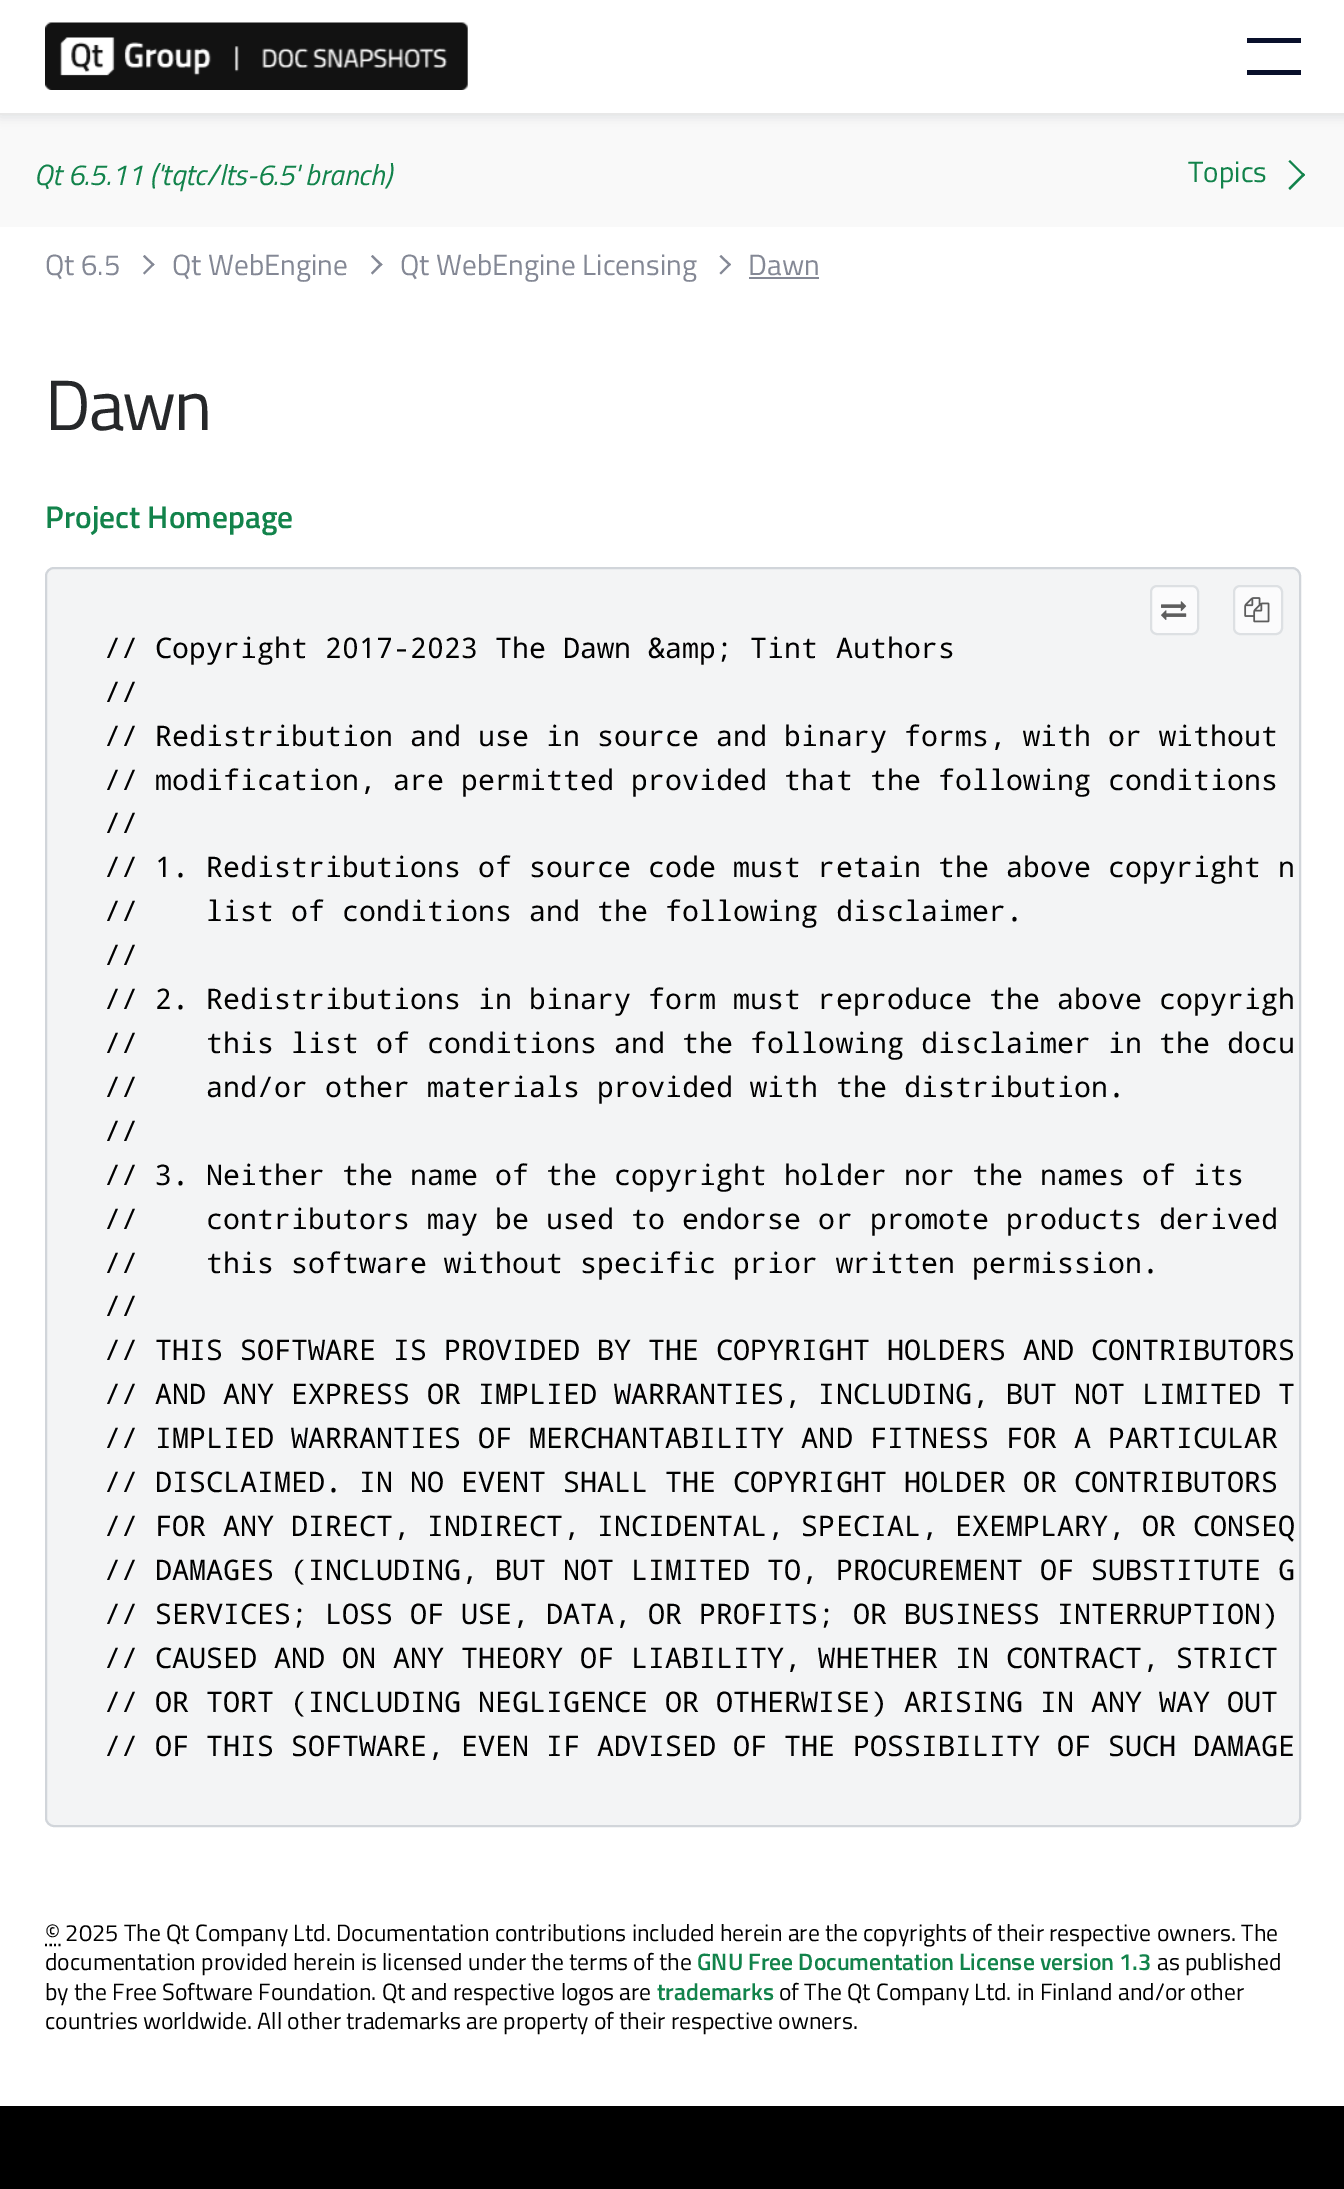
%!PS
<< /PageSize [1344 2189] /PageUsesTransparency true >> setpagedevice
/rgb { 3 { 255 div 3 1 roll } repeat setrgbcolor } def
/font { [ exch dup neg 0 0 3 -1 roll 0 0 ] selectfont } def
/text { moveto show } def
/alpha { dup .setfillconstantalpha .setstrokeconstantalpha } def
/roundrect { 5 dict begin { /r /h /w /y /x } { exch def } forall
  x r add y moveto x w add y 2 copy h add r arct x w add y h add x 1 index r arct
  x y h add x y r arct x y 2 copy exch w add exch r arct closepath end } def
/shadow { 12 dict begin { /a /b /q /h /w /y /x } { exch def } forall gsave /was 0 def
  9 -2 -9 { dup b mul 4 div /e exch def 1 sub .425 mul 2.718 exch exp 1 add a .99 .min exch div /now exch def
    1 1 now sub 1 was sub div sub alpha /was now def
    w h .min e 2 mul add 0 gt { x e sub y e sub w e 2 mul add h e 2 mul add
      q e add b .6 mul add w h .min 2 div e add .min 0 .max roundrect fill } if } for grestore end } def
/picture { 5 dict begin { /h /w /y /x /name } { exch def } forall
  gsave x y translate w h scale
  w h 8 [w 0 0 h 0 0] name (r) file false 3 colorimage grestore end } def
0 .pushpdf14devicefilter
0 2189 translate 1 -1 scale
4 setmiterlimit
255 255 255 rgb
0 0 1344 2189 rectfill
249 249 249 rgb
0 115 1344 112 rectfill
9 16 43 rgb
0 2 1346 115 0 5.5 0.1 shadow
255 255 255 rgb
0 0 1344 113 rectfill
232 232 232 rgb
0 113 1344 2 rectfill
(img_01.rgb) 45 22 423 68 picture
9 16 43 rgb
1247 38 54 5 rectfill
1247 70 54 5 rectfill
18 131 75 rgb
1288.5 161.5 moveto 1.5 -1.5 rlineto 15 15 rlineto -1.5 1.5 rlineto closepath fill
1288.5 188 moveto 15 -15 rlineto 1.5 2 rlineto -15 15 rlineto closepath fill
132 136 149 rgb
143 256.5 moveto 1.5 -1.5 rlineto 10 9.5 rlineto -1.5 1.5 rlineto closepath fill
143 273 moveto 10 -10 rlineto 1.5 1.5 rlineto -10 10 rlineto closepath fill
371 256.5 moveto 1.5 -1.5 rlineto 10 9.5 rlineto -2 1.5 rlineto closepath fill
371 273 moveto 9.5 -10 rlineto 2 1.5 rlineto -10 10 rlineto closepath fill
719.5 256.5 moveto 1.5 -1.5 rlineto 10 9.5 rlineto -1.5 1.5 rlineto closepath fill
719.5 273 moveto 10 -10 rlineto 1.5 1.5 rlineto -10 10 rlineto closepath fill
749 277 70 2 rectfill
243 244 245 rgb
46 568 1254 1258 8 roundrect gsave fill grestore
209 213 218 rgb
2 setlinewidth
stroke
251 251 252 rgb
1151 586 47 48 6 roundrect gsave fill grestore
221 224 227 rgb
stroke
(img_02.rgb) 1161 601 26 19 picture
251 251 252 rgb
1234 586 48 48 6 roundrect gsave fill grestore
221 224 227 rgb
stroke
(img_03.rgb) 1244 597 26 26 picture
0 0 0 rgb
2.2 setlinewidth
45 1945 moveto 2 0 rlineto 49.5 1945 moveto 2.5 0 rlineto 54 1945 moveto 2 0 rlineto 58.5 1945 moveto 2 0 rlineto stroke
0 2106 1344 83 rectfill
/TitilliumWeb-Italic 29.25 font
18 131 75 rgb
(Qt 6.5.11 \('tqtc/lts-6.5' branch\)) 34 185 text
/TitilliumWeb-Regular 29.25 font
(Topics) 1188 182 text
132 136 149 rgb
(Qt 6.5) 45 275 text
(Qt WebEngine) 172 275 text
(Qt WebEngine Licensing) 400 275 text
(Dawn) 748 275 text
/TitilliumWeb-Regular 71 font
38 40 42 rgb
45 430 moveto -2 0 (Dawn) ashow
/TitilliumWeb-SemiBold 31.5 font
18 131 75 rgb
(Project Homepage) 45 528 text
/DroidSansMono-Regular 28.35 font
0 0 0 rgb
(// Copyright 2017-2023 The Dawn &amp; Tint Authors) 104 658 text
(//) 104 702 text
(// Redistribution and use in source and binary forms, with or without) 104 746 text
(// modification, are permitted provided that the following conditions) 104 790 text
(//) 104 833 text
(// 1. Redistributions of source code must retain the above copyright n) 104 877 text
(//    list of conditions and the following disclaimer.) 104 921 text
(//) 104 965 text
(// 2. Redistributions in binary form must reproduce the above copyrigh) 104 1009 text
(//    this list of conditions and the following disclaimer in the docu) 104 1053 text
(//    and/or other materials provided with the distribution.) 104 1097 text
(//) 104 1141 text
(// 3. Neither the name of the copyright holder nor the names of its) 104 1185 text
(//    contributors may be used to endorse or promote products derived) 104 1229 text
(//    this software without specific prior written permission.) 104 1273 text
(//) 104 1316 text
(// THIS SOFTWARE IS PROVIDED BY THE COPYRIGHT HOLDERS AND CONTRIBUTORS) 104 1360 text
(// AND ANY EXPRESS OR IMPLIED WARRANTIES, INCLUDING, BUT NOT LIMITED T) 104 1404 text
(// IMPLIED WARRANTIES OF MERCHANTABILITY AND FITNESS FOR A PARTICULAR) 104 1448 text
(// DISCLAIMED. IN NO EVENT SHALL THE COPYRIGHT HOLDER OR CONTRIBUTORS) 104 1492 text
(// FOR ANY DIRECT, INDIRECT, INCIDENTAL, SPECIAL, EXEMPLARY, OR CONSEQ) 104 1536 text
(// DAMAGES \(INCLUDING, BUT NOT LIMITED TO, PROCUREMENT OF SUBSTITUTE G) 104 1580 text
(// SERVICES; LOSS OF USE, DATA, OR PROFITS; OR BUSINESS INTERRUPTION\)) 104 1624 text
(// CAUSED AND ON ANY THEORY OF LIABILITY, WHETHER IN CONTRACT, STRICT) 104 1668 text
(// OR TORT \(INCLUDING NEGLIGENCE OR OTHERWISE\) ARISING IN ANY WAY OUT) 104 1712 text
(// OF THIS SOFTWARE, EVEN IF ADVISED OF THE POSSIBILITY OF SUCH DAMAGE) 104 1756 text
/TitilliumWeb-Regular 23.62 font
(© 2025 The Qt Company Ltd. Documentation contributions included herein are the copyrights of their respective owners. The) 45 1941 text
(documentation provided herein is licensed under the terms of the) 45 1970 text
/TitilliumWeb-SemiBold 23.62 font
18 131 75 rgb
(GNU Free Documentation License version 1.3) 697 1970 text
/TitilliumWeb-Regular 23.62 font
0 0 0 rgb
(as published) 1157 1970 text
(by the Free Software Foundation. Qt and respective logos are) 45 2000 text
/TitilliumWeb-SemiBold 23.62 font
18 131 75 rgb
(trademarks) 657 2000 text
/TitilliumWeb-Regular 23.62 font
0 0 0 rgb
(of The Qt Company Ltd. in Finland and/or other) 779 2000 text
(countries worldwide. All other trademarks are property of their respective owners.) 45 2029 text
.poppdf14devicefilter showpage
